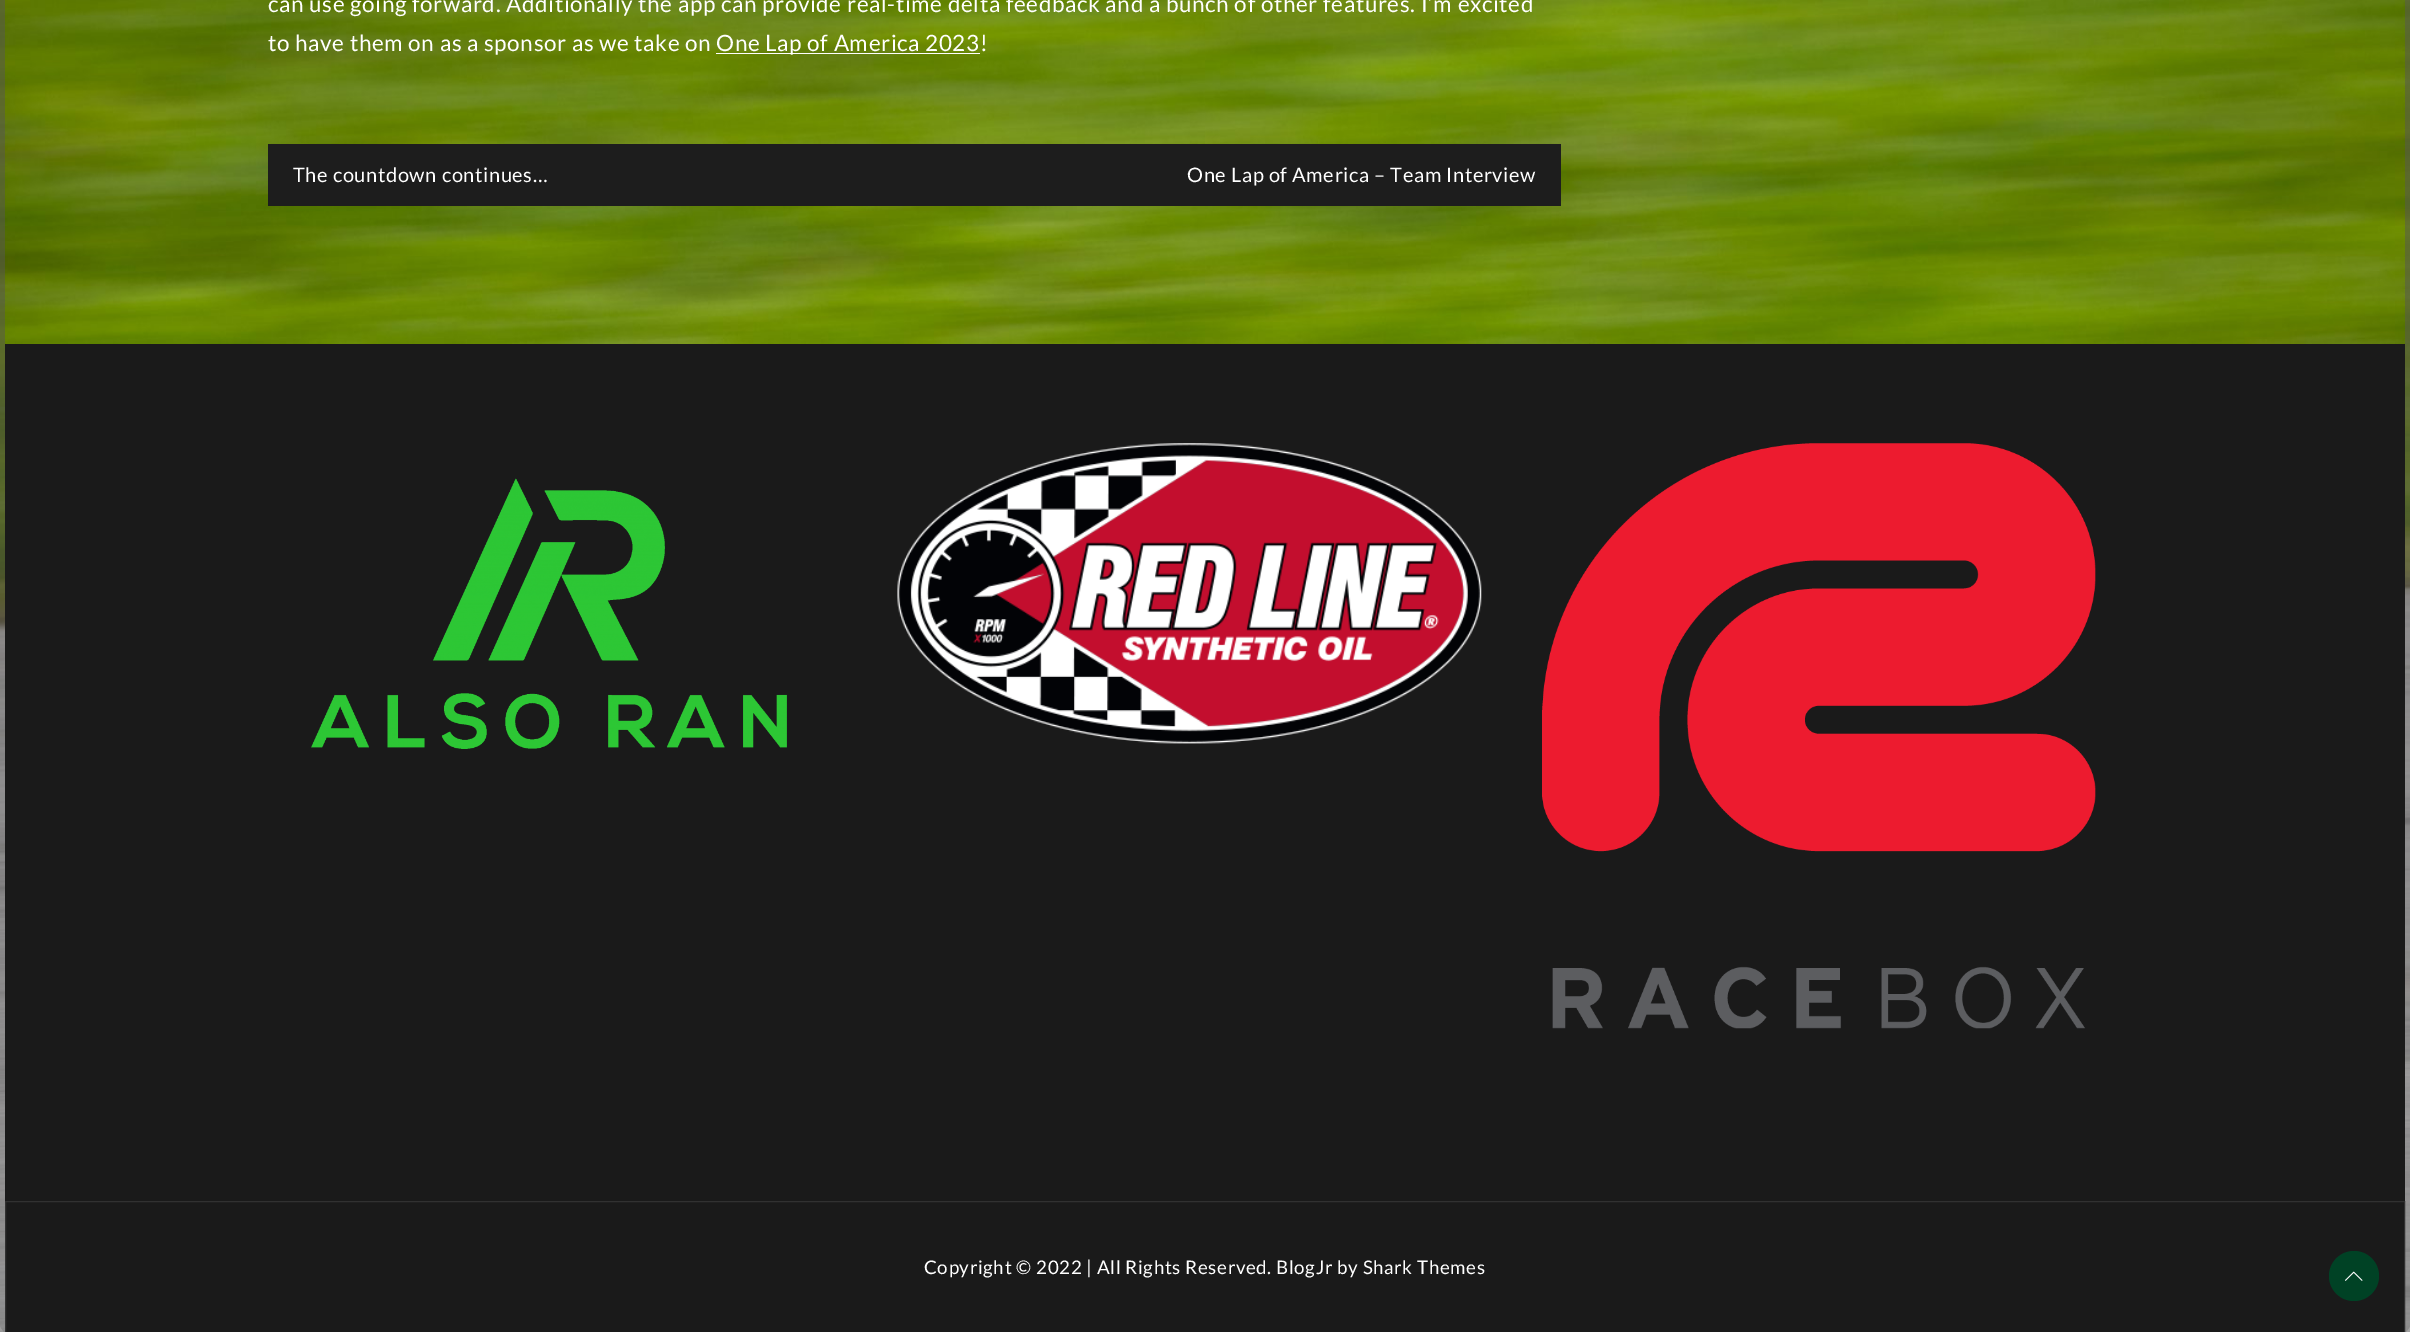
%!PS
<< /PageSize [2410 1332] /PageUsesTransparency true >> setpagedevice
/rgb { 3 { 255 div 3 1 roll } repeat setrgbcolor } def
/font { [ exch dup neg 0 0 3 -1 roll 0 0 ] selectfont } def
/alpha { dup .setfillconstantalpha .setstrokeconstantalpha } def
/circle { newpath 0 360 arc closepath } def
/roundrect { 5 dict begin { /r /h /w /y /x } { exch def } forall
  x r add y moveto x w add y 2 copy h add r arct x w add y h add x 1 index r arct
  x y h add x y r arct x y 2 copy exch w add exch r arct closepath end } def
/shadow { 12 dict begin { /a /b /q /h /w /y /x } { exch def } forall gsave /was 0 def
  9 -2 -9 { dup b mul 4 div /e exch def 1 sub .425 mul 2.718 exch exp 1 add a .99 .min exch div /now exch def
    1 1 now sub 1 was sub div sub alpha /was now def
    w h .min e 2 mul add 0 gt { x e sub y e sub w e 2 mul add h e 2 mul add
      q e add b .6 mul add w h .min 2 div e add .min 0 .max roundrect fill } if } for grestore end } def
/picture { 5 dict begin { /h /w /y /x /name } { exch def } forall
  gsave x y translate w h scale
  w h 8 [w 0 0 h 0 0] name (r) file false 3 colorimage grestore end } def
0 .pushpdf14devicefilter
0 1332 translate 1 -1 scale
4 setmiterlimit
255 255 255 rgb
0 0 2410 1332 rectfill
(img_01.rgb) 0 0 2410 1332 picture
gsave
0 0 moveto 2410 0 rlineto 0 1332 rlineto -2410 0 rlineto closepath 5 -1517 moveto 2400 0 rlineto 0 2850 rlineto -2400 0 rlineto closepath eoclip newpath
85 85 85 rgb
5 -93 2400 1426 0 31 1 shadow
grestore
716 53 264 1 rectfill
29 29 29 rgb
268 144 1293 62 rectfill
26 26 26 rgb
5 344 2400 988 rectfill
(img_02.rgb) 311 478 476 271 picture
(img_03.rgb) 897 443 585 301 picture
(img_04.rgb) 1542 443 554 586 picture
49 49 49 rgb
5.5 1201.5 2399 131 rectstroke
0 66 37 rgb
2354 1276 25 circle fill
(img_05.rgb) 2345 1271 18 10 picture
/Lato-Regular 22.5 font
255 255 255 rgb
268 12 moveto 0.62 0 (can use going forward. Additionally the app can provide real-time delta feedback and a bunch of other features. I’m excited) ashow
268 51 moveto 0.62 0 (to have them on as a sponsor as we take on) ashow
716 51 moveto 0.62 0 (One Lap of America 2023!) ashow
/Lato-Regular 20 font
293 182 moveto 0.62 0 (The countdown continues…) ashow
1187 182 moveto 0.62 0 (One Lap of America – Team Interview) ashow
/Lato-Regular 18.75 font
924 1274 moveto 0.62 0 (Copyright © 2022 | All Rights Reserved. BlogJr by Shark Themes) ashow
.poppdf14devicefilter showpage
